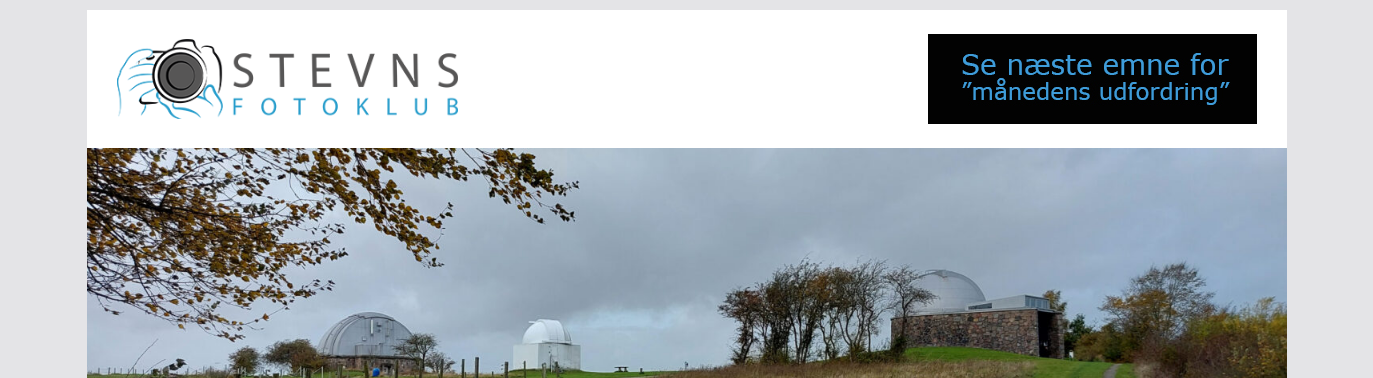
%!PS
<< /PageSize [1373 378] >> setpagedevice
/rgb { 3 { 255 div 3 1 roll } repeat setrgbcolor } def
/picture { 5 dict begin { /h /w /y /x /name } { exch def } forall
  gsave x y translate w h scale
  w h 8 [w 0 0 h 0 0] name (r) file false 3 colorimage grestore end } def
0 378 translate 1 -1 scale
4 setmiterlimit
228 228 231 rgb
0 0 1373 378 rectfill
255 255 255 rgb
87 10 1200 138 rectfill
(img_01.rgb) 117 39 341 80 picture
(img_02.rgb) 928 34 329 90 picture
(img_03.rgb) 87 148 1200 230 picture
showpage
